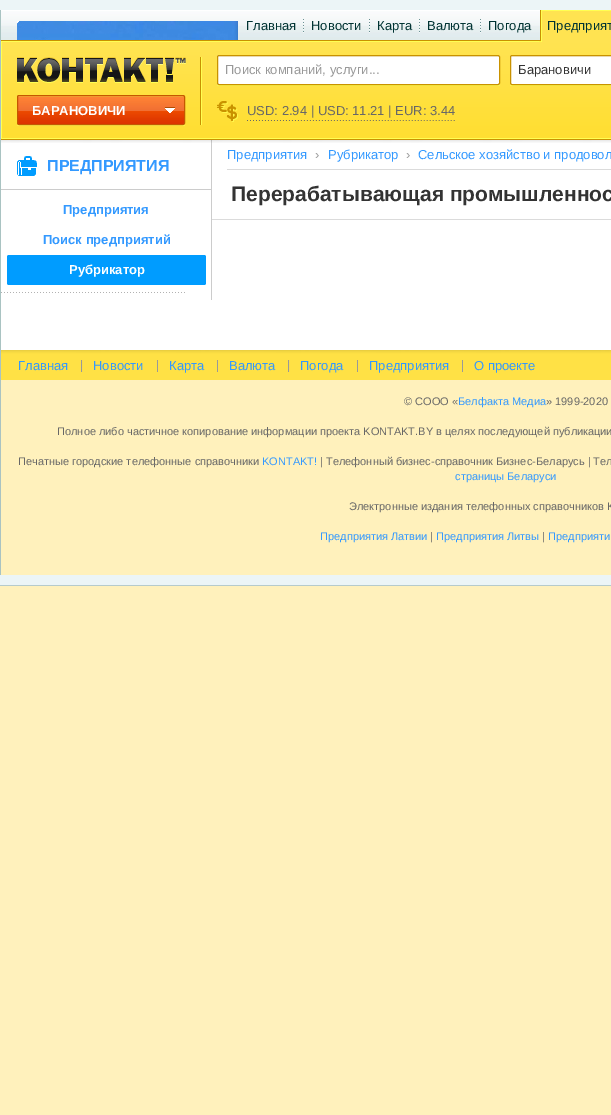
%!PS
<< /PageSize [611 1115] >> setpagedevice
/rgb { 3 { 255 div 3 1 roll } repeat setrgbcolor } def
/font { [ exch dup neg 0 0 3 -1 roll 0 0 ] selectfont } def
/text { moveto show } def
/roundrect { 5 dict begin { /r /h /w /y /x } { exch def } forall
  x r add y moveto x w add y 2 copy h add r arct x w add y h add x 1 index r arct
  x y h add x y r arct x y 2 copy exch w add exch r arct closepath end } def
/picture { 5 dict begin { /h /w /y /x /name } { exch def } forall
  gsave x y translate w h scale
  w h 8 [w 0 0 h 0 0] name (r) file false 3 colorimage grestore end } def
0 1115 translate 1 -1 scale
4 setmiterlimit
255 241 188 rgb
0 0 611 1115 rectfill
236 245 247 rgb
0 0 611 585 rectfill
182 203 204 rgb
0 585 611 1 rectfill
255 255 255 rgb
1 140 610 210 rectfill
169 195 194 rgb
0 10 1 565 rectfill
(img_01.rgb) 1 10 538 30 picture
(img_02.rgb) 17 21 221 19 picture
(img_03.rgb) 303 19 1 14 picture
(img_04.rgb) 369 19 1 14 picture
(img_03.rgb) 419 19 1 14 picture
(img_03.rgb) 480 19 1 14 picture
(img_05.rgb) 539 10 72 32 picture
204 204 204 rgb
211 140 1 160 rectfill
(img_06.rgb) 1 42 610 101 picture
255 255 82 rgb
1 138 610 1 rectfill
1 42 1 97 rectfill
(img_07.rgb) 1 40 538 2 picture
255 255 84 rgb
217 83 moveto 0 1 0 3 2 3 rcurveto 279 0 rlineto 2 0 2 -2 2 -3 rcurveto 0 1 -1 2 -2 2 rcurveto -279 0 rlineto -1 0 -2 -1 -2 -2 rcurveto closepath fill
255 255 255 rgb
217 55 283 30 2 roundrect fill
(img_08.rgb) 217 56 283 1 picture
201 146 0 rgb
217.5 55.5 282 29 1.5 roundrect stroke
255 255 84 rgb
510 83 moveto 0 1 0 3 2 3 rcurveto 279 0 rlineto 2 0 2 -2 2 -3 rcurveto 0 1 -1 2 -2 2 rcurveto -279 0 rlineto -1 0 -2 -1 -2 -2 rcurveto closepath fill
255 255 255 rgb
510 55 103 30 2 roundrect fill
(img_09.rgb) 510 56 101 1 picture
201 146 0 rgb
510.5 55.5 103 29 1.5 roundrect stroke
(img_10.rgb) 200 57 2 68 picture
(img_11.rgb) 17 57 169 26 picture
255 255 82 rgb
17 123 moveto 0 1 0 3 2 3 rcurveto 164 0 rlineto 2 0 2 -2 2 -3 rcurveto 0 1 -1 2 -2 2 rcurveto -164 0 rlineto -1 0 -2 -1 -2 -2 rcurveto closepath fill
(img_12.rgb) 17 96 168 28 picture
197 87 0 rgb
17.5 95.5 167 29 1.5 roundrect stroke
(img_13.rgb) 165 107 10 6 picture
(img_14.rgb) 217 101 238 21 picture
204 204 204 rgb
1 189 210 1 rectfill
(img_15.rgb) 17 156 20 20 picture
0 156 255 rgb
7 255 199 30 2 roundrect fill
(img_16.rgb) 1 292 184 1 picture
219 219 219 rgb
227 169 384 1 rectfill
212 219 399 1 rectfill
(img_17.rgb) 1 350 610 30 picture
(img_18.rgb) 81 360 2 12 picture
(img_19.rgb) 157 360 1 12 picture
(img_19.rgb) 217 360 1 12 picture
(img_18.rgb) 288 360 2 12 picture
(img_19.rgb) 357 360 1 12 picture
(img_19.rgb) 462 360 1 12 picture
255 241 188 rgb
1 380 610 195 rectfill
/LiberationSans-Regular 13 font
0 51 51 rgb
(Главная) 246 30 text
(Новости) 311 30 text
(Карта) 377 30 text
(Валюта) 427 30 text
(Погода) 488 30 text
(Предприят) 547 30 text
153 153 153 rgb
(Поиск компаний, услуги...) 225 74 text
51 51 51 rgb
(Барановичи) 518 74 text
/LiberationSans-Bold 13 font
255 255 255 rgb
(БАРАНОВИЧИ) 32 115 text
/LiberationSans-Regular 13 font
103 103 103 rgb
(USD: 2.94 | USD: 11.21 | EUR: 3.44) 247 115 text
/LiberationSans-Bold 16 font
51 153 255 rgb
(ПРЕДПРИЯТИЯ) 47 171 text
/LiberationSans-Bold 13 font
(Предприятия) 63 214 text
(Поиск предприятий) 43 244 text
255 255 255 rgb
(Рубрикатор) 69 274 text
/LiberationSans-Regular 13 font
51 153 255 rgb
(Предприятия) 227 159 text
153 153 153 rgb
(›) 315 159 text
51 153 255 rgb
(Рубрикатор) 328 159 text
153 153 153 rgb
(›) 406 159 text
51 153 255 rgb
(Сельское хозяйство и продовол) 418 159 text
/LiberationSans-Bold 21 font
51 51 51 rgb
(Перерабатывающая промышленнос) 231 201 text
/LiberationSans-Regular 13 font
51 153 255 rgb
(Главная) 18 370 text
(Новости) 93 370 text
(Карта) 169 370 text
(Валюта) 229 370 text
(Погода) 300 370 text
(Предприятия) 369 370 text
(О проекте) 474 370 text
/LiberationSans-Regular 11 font
103 103 103 rgb
(© СООО «) 404 405 text
51 153 255 rgb
(Белфакта Медиа) 458 405 text
103 103 103 rgb
(» 1999-2020) 546 405 text
(Полное либо частичное копирование информации проекта KONTAKT.BY в целях последующей публикации) 57 435 text
(Печатные городские телефонные справочники) 18 465 text
51 153 255 rgb
(KONTAKT!) 262 465 text
103 103 103 rgb
(| Телефонный бизнес-справочник Бизнес-Беларусь | Тел) 320 465 text
51 153 255 rgb
(страницы Беларуси) 455 480 text
103 103 103 rgb
(Электронные издания телефонных справочников K) 349 510 text
51 153 255 rgb
(Предприятия Латвии) 320 540 text
103 103 103 rgb
(|) 430 540 text
51 153 255 rgb
(Предприятия Литвы) 436 540 text
103 103 103 rgb
(|) 542 540 text
51 153 255 rgb
(Предприяти) 548 540 text
showpage
